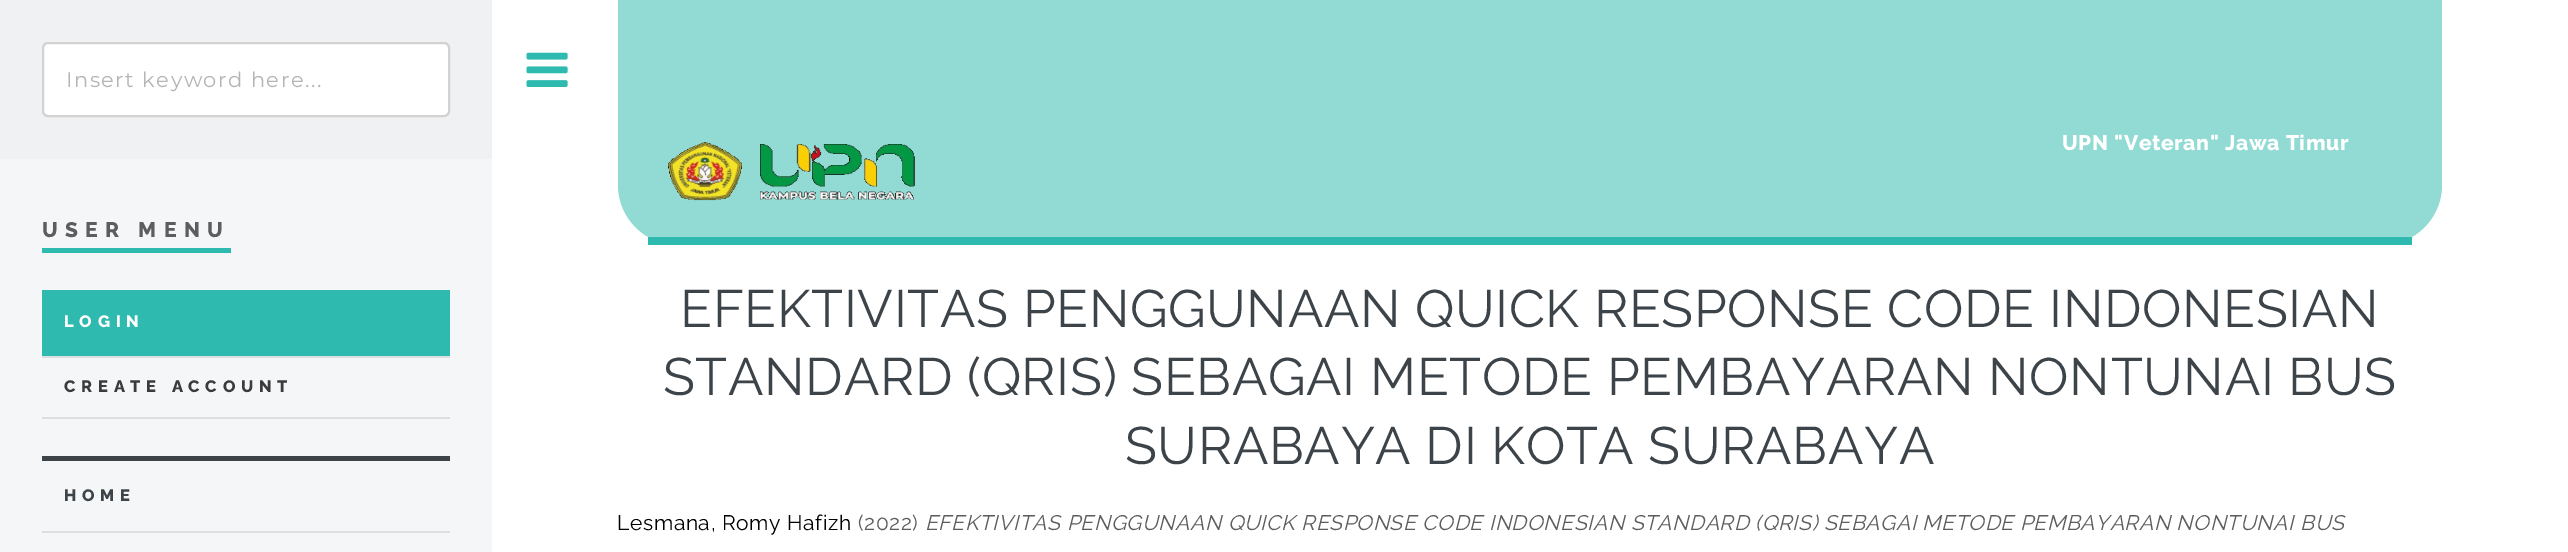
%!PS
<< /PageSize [2568 552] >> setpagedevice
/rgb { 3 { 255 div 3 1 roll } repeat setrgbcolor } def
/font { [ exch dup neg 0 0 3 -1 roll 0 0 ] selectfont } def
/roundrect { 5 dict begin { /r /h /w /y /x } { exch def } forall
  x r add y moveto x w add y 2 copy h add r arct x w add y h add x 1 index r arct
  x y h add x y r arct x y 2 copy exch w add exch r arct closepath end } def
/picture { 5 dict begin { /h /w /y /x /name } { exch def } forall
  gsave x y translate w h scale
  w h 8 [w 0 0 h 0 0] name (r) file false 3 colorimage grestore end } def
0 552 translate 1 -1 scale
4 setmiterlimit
255 255 255 rgb
0 0 2568 552 rectfill
245 246 247 rgb
0 159 492 393 rectfill
239 241 242 rgb
0 0 492 159 rectfill
255 255 255 rgb
43 43 406 73 5 roundrect gsave fill grestore
210 210 210 rgb
2 setlinewidth
stroke
46 186 174 rgb
42 248 189 5 rectfill
42 290 408 66 rectfill
219 223 225 rgb
42 356 408 2 rectfill
42 417 408 2 rectfill
61 68 73 rgb
42 456 408 5 rectfill
219 223 225 rgb
42 531 408 2 rectfill
(img_01.rgb) 526 52 42 35 picture
145 219 212 rgb
618 0 moveto 1824 0 rlineto 0 185 rlineto 0 33 -27 60 -60 60 rcurveto -1704 0 rlineto -33 0 -60 -27 -60 -60 rcurveto closepath fill
46 186 174 rgb
648 237 1764 8 rectfill
(img_02.rgb) 668 142 247 59 picture
/Montserrat-Regular 21 font
181 181 181 rgb
66 87 moveto 1.5 0 (Insert keyword here...) ashow
/Raleway-ExtraBold 21 font
93 93 93 rgb
42 237 moveto 7.25 0 (USER MENU) ashow
/Raleway-ExtraBold 16.5 font
255 255 255 rgb
64 327 moveto 5.75 0 (LOGIN) ashow
60 59 59 rgb
64 392 moveto 5.75 0 (CREATE ACCOUNT) ashow
61 68 73 rgb
64 501 moveto 5.75 0 (HOME) ashow
/Raleway-ExtraBold 21 font
255 255 255 rgb
2062 150 moveto 0.63 0 (UPN "Veteran" Jawa Timur) ashow
/Raleway-Regular 52.5 font
61 68 73 rgb
680 327 moveto 0.63 0 (EFEKTIVITAS PENGGUNAAN QUICK RESPONSE CODE INDONESIAN) ashow
663 395 moveto 0.63 0 (STANDARD \(QRIS\) SEBAGAI METODE PEMBAYARAN NONTUNAI BUS) ashow
1125 464 moveto 0.63 0 (SURABAYA DI KOTA SURABAYA) ashow
/Raleway-Regular 21 font
0 0 0 rgb
617 530 moveto 0.63 0 (Lesmana, Romy Hafizh) ashow
93 93 93 rgb
858 530 moveto 0.63 0 (\(2022\)) ashow
/Raleway-Italic 21 font
925 530 moveto 0.63 0 (EFEKTIVITAS PENGGUNAAN QUICK RESPONSE CODE INDONESIAN STANDARD \(QRIS\) SEBAGAI METODE PEMBAYARAN NONTUNAI BUS) ashow
showpage
